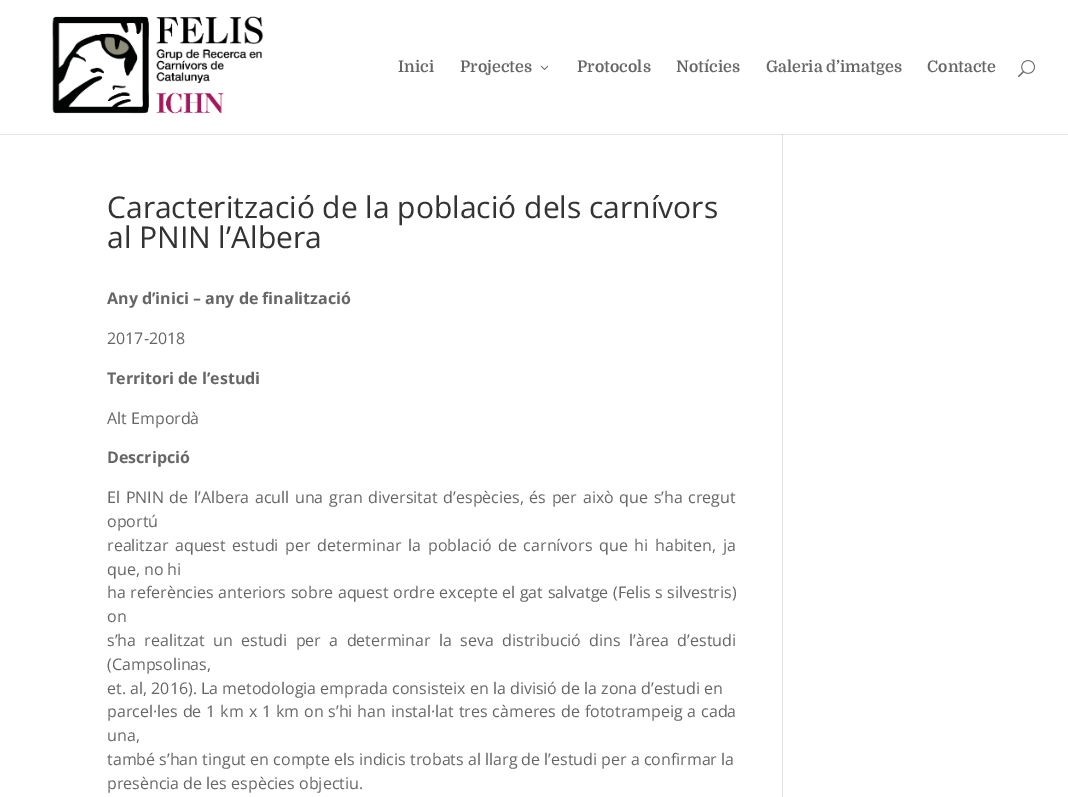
%!PS
<< /PageSize [1068 797] >> setpagedevice
/rgb { 3 { 255 div 3 1 roll } repeat setrgbcolor } def
/font { [ exch dup neg 0 0 3 -1 roll 0 0 ] selectfont } def
/text { moveto show } def
/picture { 5 dict begin { /h /w /y /x /name } { exch def } forall
  gsave x y translate w h scale
  w h 8 [w 0 0 h 0 0] name (r) file false 3 colorimage grestore end } def
0 797 translate 1 -1 scale
4 setmiterlimit
255 255 255 rgb
0 0 1068 797 rectfill
230 230 230 rgb
0 134 1068 1 rectfill
(img_01.rgb) 52 16 212 98 picture
(img_02.rgb) 540 65 9 5 picture
(img_03.rgb) 1018 60 17 18 picture
226 226 226 rgb
782 134 1 663 rectfill
203 203 203 rgb
782 134 1 1 rectfill
/Domine-SemiBold 16 font
102 102 102 rgb
(Inici) 398 72 text
(Projectes) 460 72 text
(Protocols) 577 72 text
(Notícies) 676 72 text
(Galeria d’imatges) 766 72 text
(Contacte) 927 72 text
/OpenSans-Regular 30 font
51 51 51 rgb
(Caracterització de la població dels carnívors) 107 218 text
(al PNIN l’Albera) 107 248 text
/OpenSans-Bold 16 font
102 102 102 rgb
(Any d’inici – any de finalització) 107 304 text
/OpenSans-Regular 16 font
(2017-2018) 107 344 text
/OpenSans-Bold 16 font
(Territori de l’estudi) 107 384 text
/OpenSans-Regular 16 font
(Alt Empordà) 107 424 text
/OpenSans-Bold 16 font
(Descripció) 107 463 text
/OpenSans-Regular 16 font
107 503 moveto 1.5 0 32 (El PNIN de l’Albera acull una gran diversitat d’espècies, és per això que s’ha cregut) widthshow
(oportú) 107 527 text
107 551 moveto 2.6 0 32 (realitzar aquest estudi per determinar la població de carnívors que hi habiten, ja) widthshow
(que, no hi) 107 575 text
107 598 moveto 0.4 0 32 (ha referències anteriors sobre aquest ordre excepte el gat salvatge \(Felis s silvestris\)) widthshow
(on) 107 622 text
107 646 moveto 4.25 0 32 (s’ha realitzat un estudi per a determinar la seva distribució dins l’àrea d’estudi) widthshow
(\(Campsolinas,) 107 670 text
(et. al, 2016\). La metodologia emprada consisteix en la divisió de la zona d’estudi en) 107 694 text
107 717 moveto 0.75 0 32 (parcel·les de 1 km x 1 km on s’hi han instal·lat tres càmeres de fototrampeig a cada) widthshow
(una,) 107 741 text
(també s’han tingut en compte els indicis trobats al llarg de l’estudi per a confirmar la) 107 765 text
(presència de les espècies objectiu.) 107 789 text
showpage
